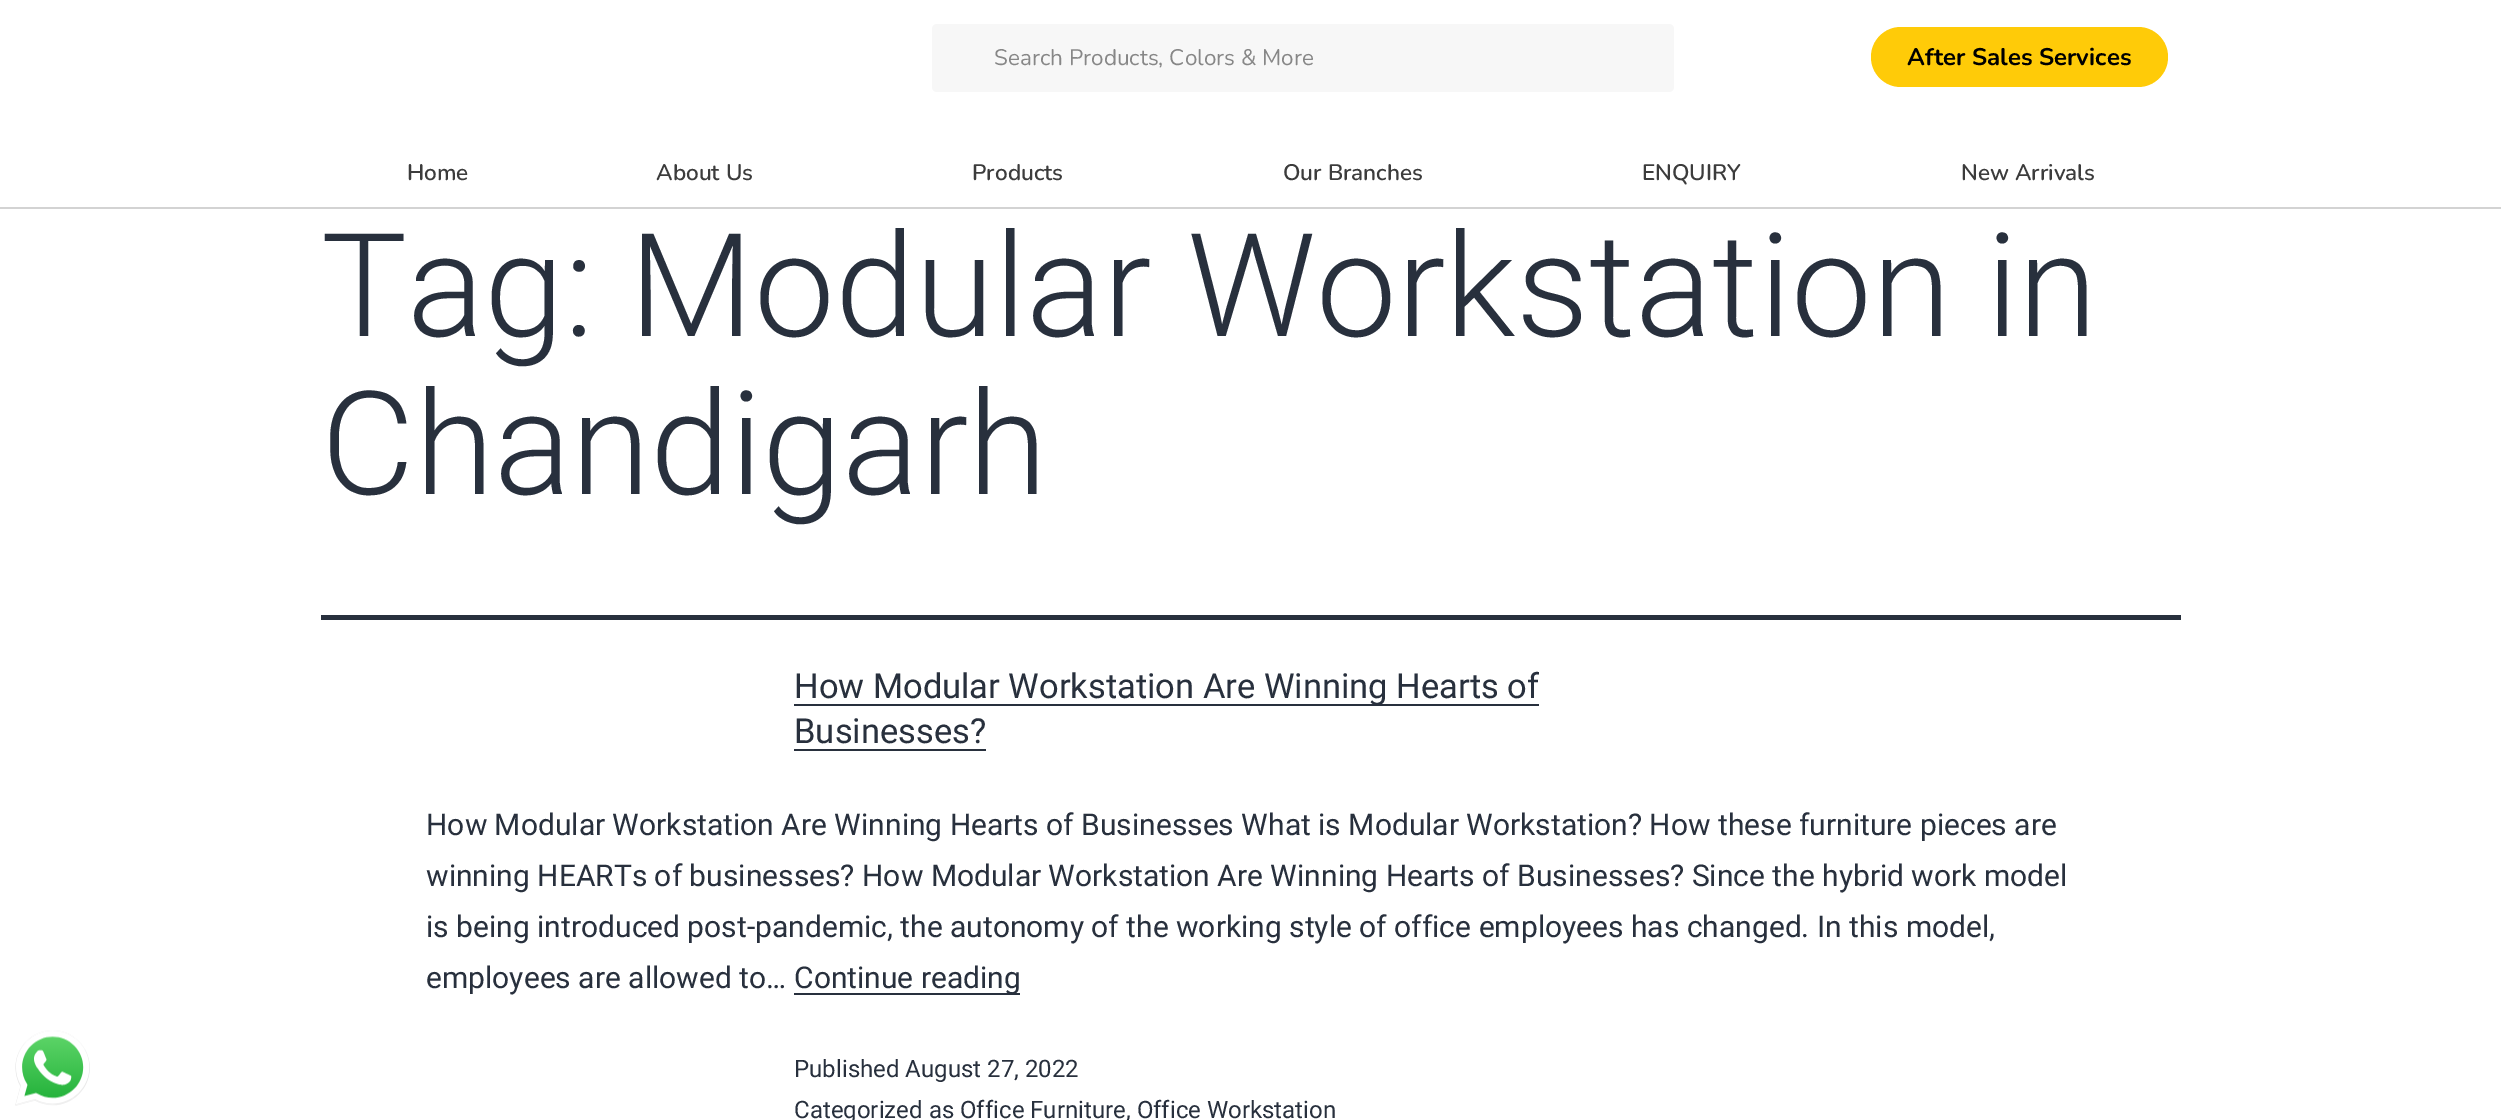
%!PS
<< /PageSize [2501 1120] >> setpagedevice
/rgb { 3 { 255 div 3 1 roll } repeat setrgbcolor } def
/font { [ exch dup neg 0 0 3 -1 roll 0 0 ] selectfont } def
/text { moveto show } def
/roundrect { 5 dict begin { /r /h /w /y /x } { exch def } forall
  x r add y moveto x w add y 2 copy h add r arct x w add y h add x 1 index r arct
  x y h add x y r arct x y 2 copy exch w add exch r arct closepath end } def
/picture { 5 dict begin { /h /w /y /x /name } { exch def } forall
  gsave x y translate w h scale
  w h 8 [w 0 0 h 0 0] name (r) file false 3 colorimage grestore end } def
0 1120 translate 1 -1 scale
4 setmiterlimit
255 255 255 rgb
0 0 2501 1120 rectfill
211 211 211 rgb
0 207 2501 2 rectfill
247 247 247 rgb
932 24 742 68 5 roundrect fill
255 203 8 rgb
1871 27 297 60 30 roundrect fill
40 48 61 rgb
321 615 1860 5 rectfill
(img_01.rgb) 15 1030 75 76 picture
794 704 745 2 rectfill
794 749 192 2 rectfill
794 993 226 2 rectfill
/Nunito-Regular 22.5 font
135 135 135 rgb
(Search Products, Colors & More) 994 65 text
/Nunito-Bold 24 font
0 0 0 rgb
(After Sales Services) 1907 65 text
/Nunito-SemiBold 22.5 font
60 60 60 rgb
(Home) 407 180 text
(About Us) 656 180 text
(Products) 972 180 text
(Our Branches) 1283 180 text
(ENQUIRY) 1642 180 text
(New Arrivals) 1961 180 text
/Roboto-Light 144 font
40 48 61 rgb
(Tag: Modular Workstation in) 321 336 text
(Chandigarh) 321 494 text
/Roboto-Regular 34.5 font
(How Modular Workstation Are Winning Hearts of) 794 698 text
(Businesses?) 794 743 text
/Roboto-Regular 30 font
(How Modular Workstation Are Winning Hearts of Businesses What is Modular Workstation? How these furniture pieces are) 426 835 text
(winning HEARTs of businesses? How Modular Workstation Are Winning Hearts of Businesses? Since the hybrid work model) 426 886 text
(is being introduced post-pandemic, the autonomy of the working style of office employees has changed. In this model,) 426 937 text
(employees are allowed to…) 426 988 text
(Continue reading) 794 988 text
/Roboto-Regular 24 font
(Published August 27, 2022) 794 1077 text
(Categorized as Office Furniture, Office Workstation) 794 1118 text
showpage
